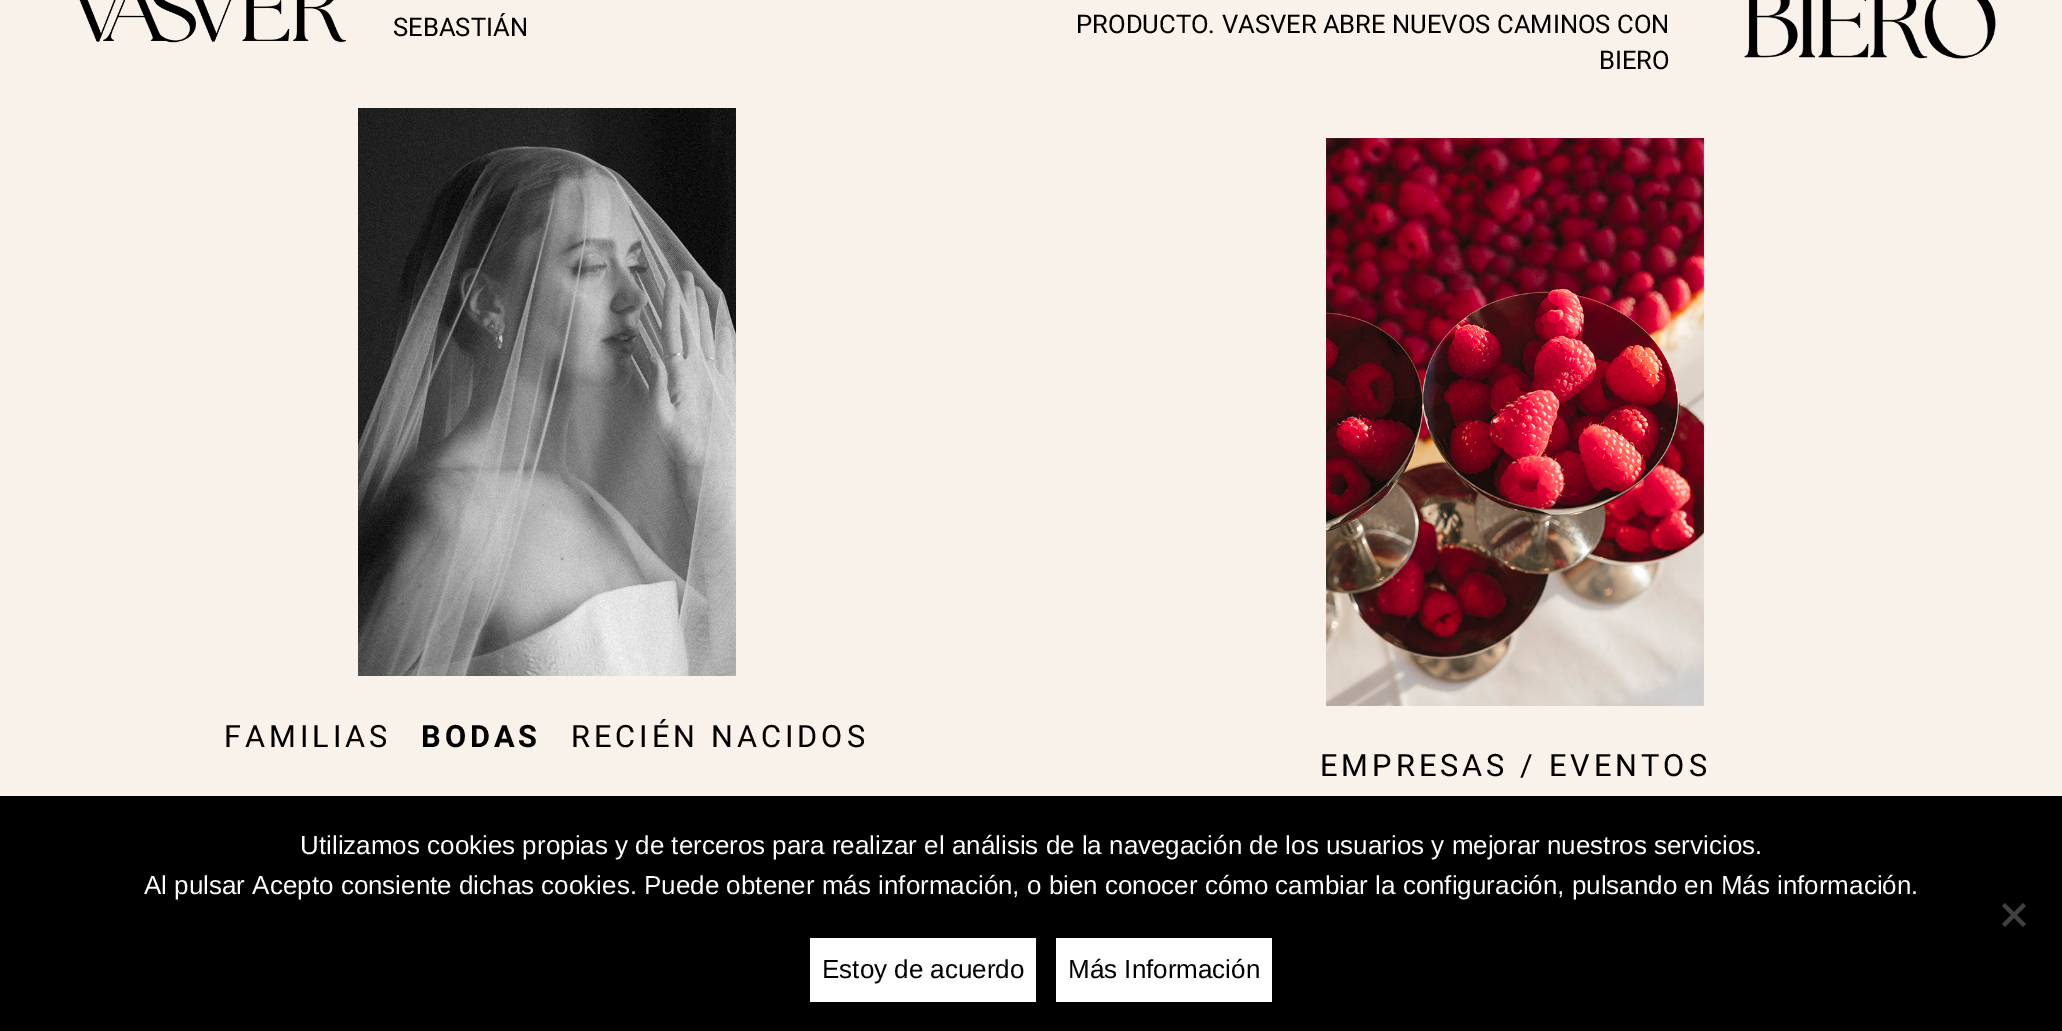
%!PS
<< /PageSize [2062 1031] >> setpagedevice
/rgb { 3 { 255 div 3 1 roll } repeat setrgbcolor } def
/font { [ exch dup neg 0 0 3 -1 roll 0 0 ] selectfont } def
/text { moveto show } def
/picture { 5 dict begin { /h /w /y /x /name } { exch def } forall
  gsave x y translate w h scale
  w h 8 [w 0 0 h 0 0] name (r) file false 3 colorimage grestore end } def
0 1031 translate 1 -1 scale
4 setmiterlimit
249 242 234 rgb
0 0 2062 1031 rectfill
(img_01.rgb) 79 0 267 43 picture
(img_02.rgb) 358 108 378 568 picture
(img_03.rgb) 1744 0 252 59 picture
(img_04.rgb) 1326 138 378 568 picture
0 0 0 rgb
0 796 2062 235 rectfill
64 64 64 rgb
2023 903 moveto 3 3 rlineto -21 21 rlineto -3 -3 rlineto closepath fill
2002 906 moveto 3 -3 rlineto 21 21 rlineto -3 3 rlineto closepath fill
255 255 255 rgb
810 938 226 64 rectfill
1056 938 216 64 rectfill
/Roboto-Regular 25.6 font
0 0 0 rgb
(SEBASTIÁN) 393 36 text
/Roboto-Regular 30.75 font
224 747 moveto 4 0 (FAMILIAS) ashow
/Roboto-Bold 30.75 font
421 747 moveto 4 0 (BODAS) ashow
/Roboto-Regular 30.75 font
571 747 moveto 4 0 (RECIÉN NACIDOS) ashow
/Roboto-Regular 25.6 font
(PRODUCTO. VASVER ABRE NUEVOS CAMINOS CON) 1076 33 text
(BIERO) 1599 69 text
/Roboto-Regular 30.75 font
1320 776 moveto 4 0 (EMPRESAS / EVENTOS) ashow
/LiberationSans-Regular 26 font
255 255 255 rgb
(Utilizamos cookies propias y de terceros para realizar el análisis de la navegación de los usuarios y mejorar nuestros servicios.) 300 854 text
(Al pulsar Acepto consiente dichas cookies. Puede obtener más información, o bien conocer cómo cambiar la configuración, pulsando en Más información.) 144 894 text
0 0 0 rgb
(Estoy de acuerdo) 822 978 text
(Más Información) 1068 978 text
showpage
